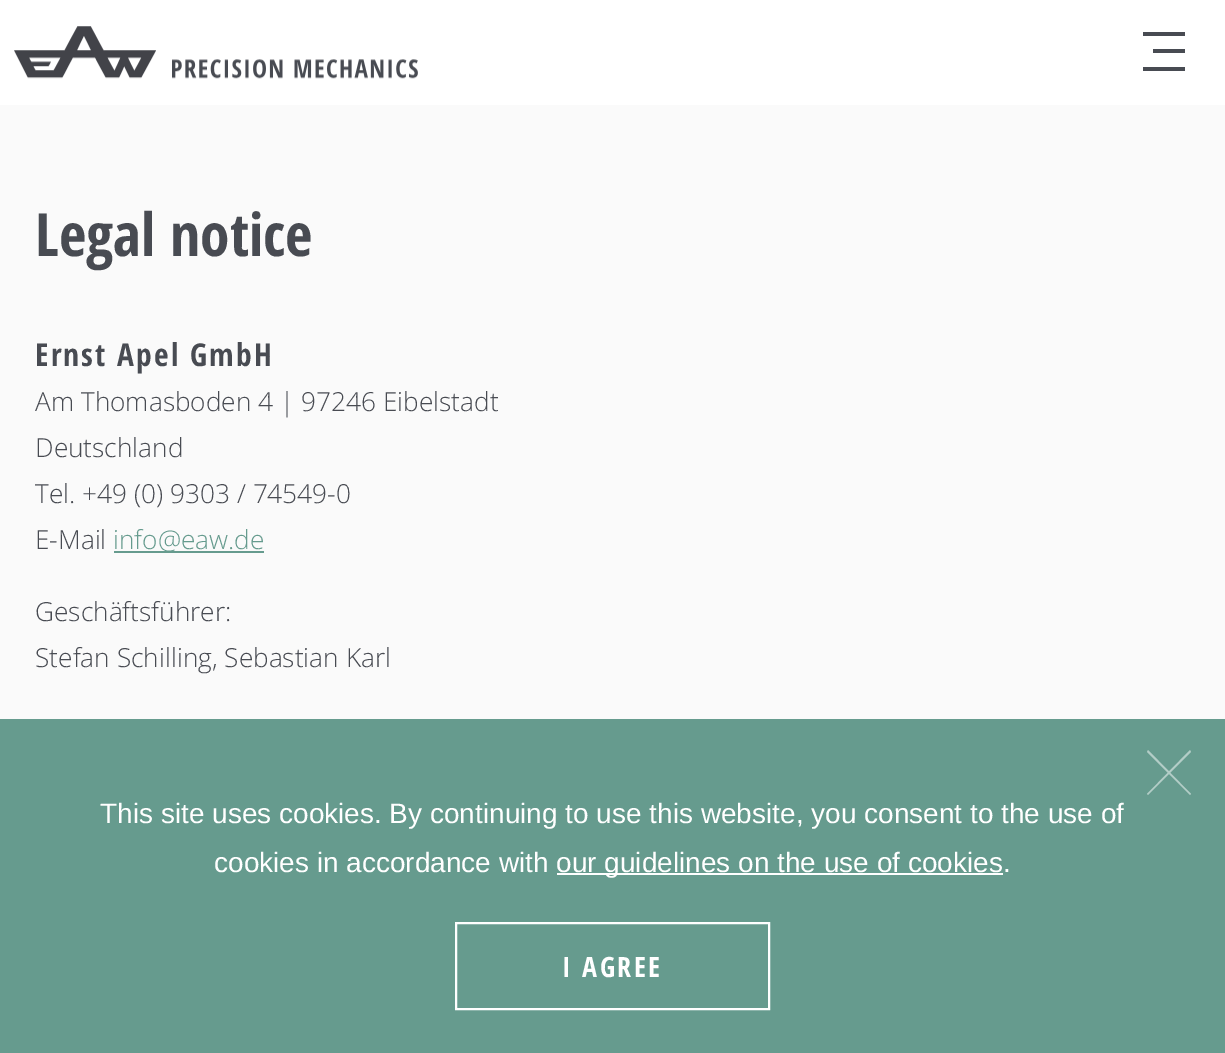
%!PS
<< /PageSize [1225 1053] >> setpagedevice
/rgb { 3 { 255 div 3 1 roll } repeat setrgbcolor } def
/font { [ exch dup neg 0 0 3 -1 roll 0 0 ] selectfont } def
/text { moveto show } def
/picture { 5 dict begin { /h /w /y /x /name } { exch def } forall
  gsave x y translate w h scale
  w h 8 [w 0 0 h 0 0] name (r) file false 3 colorimage grestore end } def
0 1053 translate 1 -1 scale
4 setmiterlimit
255 255 255 rgb
0 0 1225 1053 rectfill
(img_01.rgb) 14 26 404 53 picture
72 75 82 rgb
1143 32 42 4 rectfill
1153 49 32 4 rectfill
1143 67 42 4 rectfill
250 250 250 rgb
0 105 1225 614 rectfill
102 155 142 rgb
114 551 150 2 rectfill
0 719 1225 334 rectfill
179 205 199 rgb
1190 750 moveto 1 2 rlineto -43 43 rlineto -1 -1 rlineto closepath fill
1147 752 moveto 1 -2 rlineto 43 44 rlineto -1 1 rlineto closepath fill
255 255 255 rgb
557 873 446 2 rectfill
2 setlinewidth
456 923 313 86 rectstroke
/OpenSansCondensed-Bold 59.5 font
72 75 82 rgb
(Legal notice) 35 256 text
/OpenSansCondensed-Bold 31.5 font
35 366 moveto 2.1 0 (Ernst Apel GmbH) ashow
/OpenSans-Light 26.25 font
(Am Thomasboden 4 | 97246 Eibelstadt) 35 411 text
(Deutschland) 35 457 text
(Tel. +49 \(0\) 9303 / 74549-0) 35 503 text
(E-Mail) 35 549 text
102 155 142 rgb
(info@eaw.de) 113 549 text
72 75 82 rgb
(Geschäftsführer:) 35 621 text
(Stefan Schilling, Sebastian Karl) 35 667 text
/LiberationSans-Regular 28 font
255 255 255 rgb
(This site uses cookies. By continuing to use this website, you consent to the use of) 100 823 text
(cookies in accordance with) 214 872 text
(our guidelines on the use of cookies.) 556 872 text
/OpenSansCondensed-Bold 28 font
562 977 moveto 2.5 0 (I AGREE) ashow
showpage
